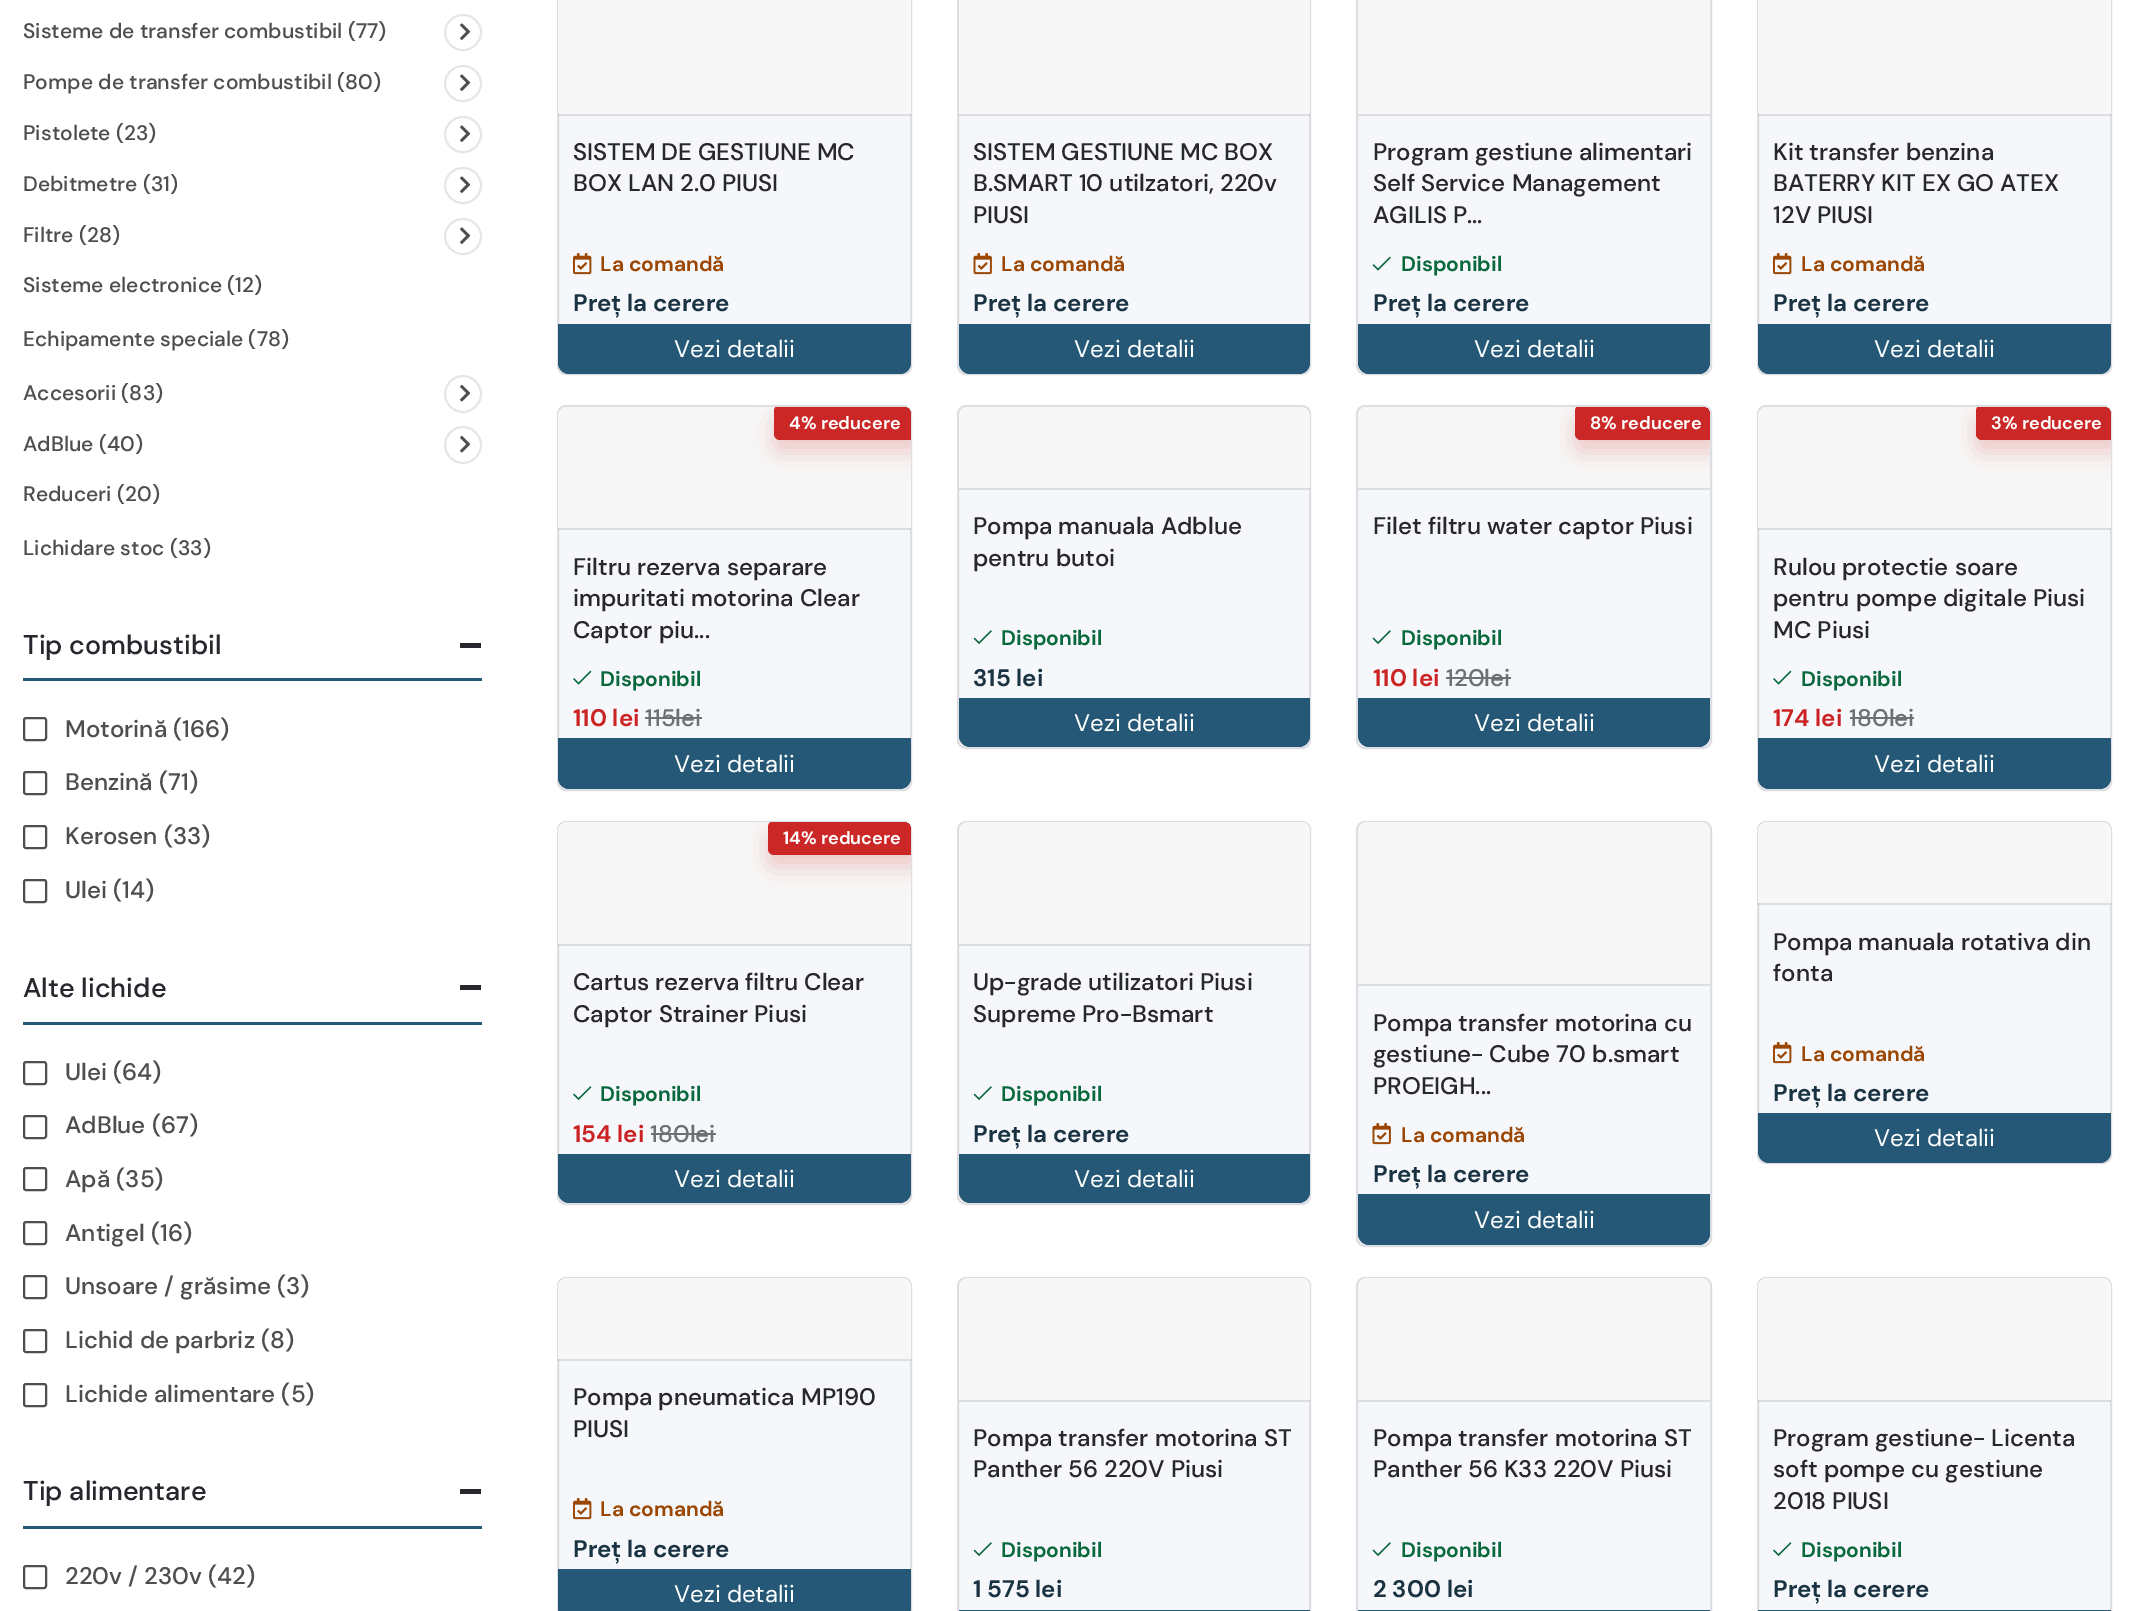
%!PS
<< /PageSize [2134 1611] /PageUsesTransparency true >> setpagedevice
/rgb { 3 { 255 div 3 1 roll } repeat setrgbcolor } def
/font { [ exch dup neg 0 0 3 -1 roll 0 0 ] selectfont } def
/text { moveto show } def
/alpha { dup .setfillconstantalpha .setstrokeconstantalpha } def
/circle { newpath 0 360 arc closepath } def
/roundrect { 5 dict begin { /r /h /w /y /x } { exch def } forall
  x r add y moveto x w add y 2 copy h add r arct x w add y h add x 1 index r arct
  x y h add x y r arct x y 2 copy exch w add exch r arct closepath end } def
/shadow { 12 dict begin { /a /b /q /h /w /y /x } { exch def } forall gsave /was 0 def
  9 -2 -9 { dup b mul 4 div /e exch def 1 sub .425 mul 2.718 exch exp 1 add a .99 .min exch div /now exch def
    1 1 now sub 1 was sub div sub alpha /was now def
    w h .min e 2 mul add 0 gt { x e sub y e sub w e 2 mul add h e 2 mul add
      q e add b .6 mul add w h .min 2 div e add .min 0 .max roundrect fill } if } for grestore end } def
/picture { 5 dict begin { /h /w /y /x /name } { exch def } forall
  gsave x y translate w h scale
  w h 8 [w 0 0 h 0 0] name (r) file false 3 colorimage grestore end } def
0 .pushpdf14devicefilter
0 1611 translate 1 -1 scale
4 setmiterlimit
255 255 255 rgb
0 0 2134 1611 rectfill
230 230 230 rgb
2 setlinewidth
445 15 36 35 17.5 roundrect stroke
(img_01.rgb) 460 23 11 17 picture
445 66 36 35 17.5 roundrect stroke
(img_01.rgb) 460 74 11 17 picture
445 117 36 35 17.5 roundrect stroke
(img_01.rgb) 460 125 11 17 picture
445 168 36 35 17.5 roundrect stroke
(img_01.rgb) 460 176 11 17 picture
445 219 36 35 17.5 roundrect stroke
(img_01.rgb) 460 227 11 17 picture
463 394 18 circle stroke
(img_02.rgb) 460 384 11 18 picture
463 445 18 circle stroke
(img_02.rgb) 460 435 11 18 picture
39 39 46 rgb
460 643 21 5 rectfill
37 88 118 rgb
23 678 459 3 rectfill
78 78 78 rgb
24 718 22 22 2 roundrect stroke
24 772 22 22 2 roundrect stroke
24 826 22 22 2 roundrect stroke
24 880 22 22 2 roundrect stroke
39 39 46 rgb
460 985 21 5 rectfill
37 88 118 rgb
23 1022 459 3 rectfill
78 78 78 rgb
24 1062 22 22 2 roundrect stroke
24 1116 22 22 2 roundrect stroke
24 1168 22 22 2 roundrect stroke
24 1222 22 22 2 roundrect stroke
24 1276 22 22 2 roundrect stroke
24 1330 22 22 2 roundrect stroke
24 1384 22 22 2 roundrect stroke
39 39 46 rgb
460 1489 21 5 rectfill
37 88 118 rgb
23 1526 459 3 rectfill
78 78 78 rgb
24 1566 22 22 2 roundrect stroke
246 247 251 rgb
557 -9 355 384 9 roundrect fill
0.1 alpha
0 0 0 rgb
558 -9 353 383 8 roundrect stroke
558 114 353 2 rectfill
1 alpha
247 247 247 rgb
558 0 353 114 rectfill
(img_03.rgb) 573 253 19 22 picture
37 88 118 rgb
558 324 moveto 353 0 rlineto 0 39 rlineto 0 6 -5 11 -11 11 rcurveto -331 0 rlineto -6 0 -11 -5 -11 -11 rcurveto closepath fill
246 247 251 rgb
957 -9 354 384 9 roundrect fill
0.1 alpha
0 0 0 rgb
958 -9 352 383 8 roundrect stroke
959 114 351 2 rectfill
1 alpha
247 247 247 rgb
959 0 351 114 rectfill
(img_04.rgb) 973 253 19 22 picture
37 88 118 rgb
959 324 moveto 351 0 rlineto 0 39 rlineto 0 6 -5 11 -11 11 rcurveto -329 0 rlineto -6 0 -11 -5 -11 -11 rcurveto closepath fill
246 247 251 rgb
1356 -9 356 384 9 roundrect fill
0.1 alpha
0 0 0 rgb
1357 -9 354 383 8 roundrect stroke
1 alpha
221 222 226 rgb
1358 114 352 2 rectfill
247 247 247 rgb
1358 0 352 114 rectfill
(img_05.rgb) 1372 256 19 15 picture
37 88 118 rgb
1358 324 moveto 352 0 rlineto 0 39 rlineto 0 6 -5 11 -11 11 rcurveto -330 0 rlineto -6 0 -11 -5 -11 -11 rcurveto closepath fill
246 247 251 rgb
1757 -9 355 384 9 roundrect fill
0.1 alpha
0 0 0 rgb
1758 -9 353 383 8 roundrect stroke
1758 114 353 2 rectfill
1 alpha
247 247 247 rgb
1758 0 353 114 rectfill
(img_03.rgb) 1773 253 19 22 picture
37 88 118 rgb
1758 324 moveto 353 0 rlineto 0 39 rlineto 0 6 -5 11 -11 11 rcurveto -331 0 rlineto -6 0 -11 -5 -11 -11 rcurveto closepath fill
246 247 251 rgb
557 405 355 386 9 roundrect fill
0.1 alpha
0 0 0 rgb
558 406 353 384 8 roundrect stroke
558 528 353 2 rectfill
gsave
558 407 353 382 8 roundrect clip newpath
1 alpha
247 247 247 rgb
567 407 moveto 335 0 rlineto 5 0 9 4 9 9 rcurveto 0 112 rlineto -353 0 rlineto 0 -112 rlineto 0 -5 4 -9 9 -9 rcurveto closepath fill
grestore
gsave
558 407 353 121 rectclip
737 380 moveto 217 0 rlineto 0 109 rlineto -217 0 rlineto closepath 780 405 moveto 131 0 rlineto 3.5 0 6 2.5 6 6 rcurveto 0 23 rlineto 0 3.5 -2.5 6 -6 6 rcurveto -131 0 rlineto -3.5 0 -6 -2.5 -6 -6 rcurveto 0 -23 rlineto 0 -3.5 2.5 -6 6 -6 rcurveto closepath eoclip newpath
1 alpha
213 81 81 rgb
774 417 143 35 6 12 0.3 shadow
grestore
gsave
558 407 353 382 8 roundrect clip newpath
1 alpha
203 39 39 rgb
774 405 143 35 6 roundrect fill
grestore
1 alpha
(img_06.rgb) 573 670 19 15 picture
111 112 118 rgb
645 717 57 2 rectfill
37 88 118 rgb
558 738 moveto 353 0 rlineto 0 40 rlineto 0 6 -5 11 -11 11 rcurveto -331 0 rlineto -6 0 -11 -5 -11 -11 rcurveto closepath fill
246 247 251 rgb
957 405 354 344 9 roundrect fill
0.1 alpha
0 0 0 rgb
958 406 352 342 8 roundrect stroke
959 488 351 2 rectfill
gsave
959 407 351 340 8 roundrect clip newpath
1 alpha
247 247 247 rgb
968 407 moveto 333 0 rlineto 5 0 9 4 9 9 rcurveto 0 72 rlineto -351 0 rlineto 0 -72 rlineto 0 -5 4 -9 9 -9 rcurveto closepath fill
grestore
1 alpha
(img_07.rgb) 973 630 19 14 picture
37 88 118 rgb
959 698 moveto 351 0 rlineto 0 38 rlineto 0 6 -5 11 -11 11 rcurveto -329 0 rlineto -6 0 -11 -5 -11 -11 rcurveto closepath fill
246 247 251 rgb
1356 405 356 344 9 roundrect fill
0.1 alpha
0 0 0 rgb
1357 406 354 342 8 roundrect stroke
1 alpha
221 222 226 rgb
1358 488 352 2 rectfill
gsave
1358 407 352 340 8 roundrect clip newpath
247 247 247 rgb
1367 407 moveto 334 0 rlineto 5 0 9 4 9 9 rcurveto 0 72 rlineto -352 0 rlineto 0 -72 rlineto 0 -5 4 -9 9 -9 rcurveto closepath fill
grestore
gsave
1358 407 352 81 rectclip
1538 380 moveto 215 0 rlineto 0 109 rlineto -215 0 rlineto closepath 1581 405 moveto 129 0 rlineto 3.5 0 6 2.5 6 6 rcurveto 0 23 rlineto 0 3.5 -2.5 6 -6 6 rcurveto -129 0 rlineto -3.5 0 -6 -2.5 -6 -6 rcurveto 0 -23 rlineto 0 -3.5 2.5 -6 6 -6 rcurveto closepath eoclip newpath
213 81 81 rgb
1575 417 141 35 6 12 0.3 shadow
grestore
gsave
1358 407 352 340 8 roundrect clip newpath
203 39 39 rgb
1575 405 141 35 6 roundrect fill
grestore
(img_07.rgb) 1372 630 19 14 picture
111 112 118 rgb
1446 677 65 2 rectfill
37 88 118 rgb
1358 698 moveto 352 0 rlineto 0 38 rlineto 0 6 -5 11 -11 11 rcurveto -330 0 rlineto -6 0 -11 -5 -11 -11 rcurveto closepath fill
246 247 251 rgb
1757 405 355 386 9 roundrect fill
0.1 alpha
0 0 0 rgb
1758 406 353 384 8 roundrect stroke
1758 528 353 2 rectfill
gsave
1758 407 353 382 8 roundrect clip newpath
1 alpha
247 247 247 rgb
1767 407 moveto 335 0 rlineto 5 0 9 4 9 9 rcurveto 0 112 rlineto -353 0 rlineto 0 -112 rlineto 0 -5 4 -9 9 -9 rcurveto closepath fill
grestore
gsave
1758 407 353 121 rectclip
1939 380 moveto 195 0 rlineto 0 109 rlineto -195 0 rlineto closepath 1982 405 moveto 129 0 rlineto 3.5 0 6 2.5 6 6 rcurveto 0 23 rlineto 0 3.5 -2.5 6 -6 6 rcurveto -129 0 rlineto -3.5 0 -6 -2.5 -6 -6 rcurveto 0 -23 rlineto 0 -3.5 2.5 -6 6 -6 rcurveto closepath eoclip newpath
1 alpha
213 81 81 rgb
1976 417 141 35 6 12 0.3 shadow
grestore
gsave
1758 407 353 382 8 roundrect clip newpath
1 alpha
203 39 39 rgb
1976 405 141 35 6 roundrect fill
grestore
1 alpha
(img_06.rgb) 1773 670 19 15 picture
111 112 118 rgb
1850 717 64 2 rectfill
37 88 118 rgb
1758 738 moveto 353 0 rlineto 0 40 rlineto 0 6 -5 11 -11 11 rcurveto -331 0 rlineto -6 0 -11 -5 -11 -11 rcurveto closepath fill
246 247 251 rgb
557 821 355 384 9 roundrect fill
0.1 alpha
0 0 0 rgb
558 822 353 382 8 roundrect stroke
558 944 353 2 rectfill
gsave
558 822 353 381 8 roundrect clip newpath
1 alpha
247 247 247 rgb
567 822 moveto 335 0 rlineto 5 0 9 4 9 9 rcurveto 0 113 rlineto -353 0 rlineto 0 -113 rlineto 0 -5 4 -9 9 -9 rcurveto closepath fill
grestore
gsave
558 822 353 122 rectclip
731 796 moveto 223 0 rlineto 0 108 rlineto -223 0 rlineto closepath 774 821 moveto 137 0 rlineto 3.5 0 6 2.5 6 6 rcurveto 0 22 rlineto 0 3.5 -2.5 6 -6 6 rcurveto -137 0 rlineto -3.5 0 -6 -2.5 -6 -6 rcurveto 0 -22 rlineto 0 -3.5 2.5 -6 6 -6 rcurveto closepath eoclip newpath
1 alpha
213 81 81 rgb
768 833 149 34 6 12 0.3 shadow
grestore
gsave
558 822 353 381 8 roundrect clip newpath
1 alpha
203 39 39 rgb
768 821 149 34 6 roundrect fill
grestore
1 alpha
(img_08.rgb) 573 1086 19 14 picture
111 112 118 rgb
651 1133 65 2 rectfill
37 88 118 rgb
558 1154 moveto 353 0 rlineto 0 38 rlineto 0 6 -5 11 -11 11 rcurveto -331 0 rlineto -6 0 -11 -5 -11 -11 rcurveto closepath fill
246 247 251 rgb
957 821 354 384 9 roundrect fill
0.1 alpha
0 0 0 rgb
958 822 352 382 8 roundrect stroke
959 944 351 2 rectfill
gsave
959 822 351 381 8 roundrect clip newpath
1 alpha
247 247 247 rgb
968 822 moveto 333 0 rlineto 5 0 9 4 9 9 rcurveto 0 113 rlineto -351 0 rlineto 0 -113 rlineto 0 -5 4 -9 9 -9 rcurveto closepath fill
grestore
1 alpha
(img_07.rgb) 973 1086 19 14 picture
37 88 118 rgb
959 1154 moveto 351 0 rlineto 0 38 rlineto 0 6 -5 11 -11 11 rcurveto -329 0 rlineto -6 0 -11 -5 -11 -11 rcurveto closepath fill
246 247 251 rgb
1356 821 356 426 9 roundrect fill
0.1 alpha
0 0 0 rgb
1357 822 354 424 8 roundrect stroke
1 alpha
221 222 226 rgb
1358 984 352 2 rectfill
gsave
1358 822 352 423 8 roundrect clip newpath
247 247 247 rgb
1367 822 moveto 334 0 rlineto 5 0 9 4 9 9 rcurveto 0 153 rlineto -352 0 rlineto 0 -153 rlineto 0 -5 4 -9 9 -9 rcurveto closepath fill
grestore
(img_04.rgb) 1372 1123 19 22 picture
37 88 118 rgb
1358 1194 moveto 352 0 rlineto 0 40 rlineto 0 6 -5 11 -11 11 rcurveto -330 0 rlineto -6 0 -11 -5 -11 -11 rcurveto closepath fill
246 247 251 rgb
1757 821 355 343 9 roundrect fill
0.1 alpha
0 0 0 rgb
1758 822 353 341 8 roundrect stroke
1758 903 353 2 rectfill
gsave
1758 822 353 341 8 roundrect clip newpath
1 alpha
247 247 247 rgb
1767 822 moveto 335 0 rlineto 5 0 9 4 9 9 rcurveto 0 72 rlineto -353 0 rlineto 0 -72 rlineto 0 -5 4 -9 9 -9 rcurveto closepath fill
grestore
1 alpha
(img_03.rgb) 1773 1042 19 22 picture
37 88 118 rgb
1758 1113 moveto 353 0 rlineto 0 39 rlineto 0 6 -5 11 -11 11 rcurveto -331 0 rlineto -6 0 -11 -5 -11 -11 rcurveto closepath fill
246 247 251 rgb
557 1277 355 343 9 roundrect fill
0.1 alpha
0 0 0 rgb
558 1278 353 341 8 roundrect stroke
558 1359 353 2 rectfill
gsave
558 1278 353 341 8 roundrect clip newpath
1 alpha
247 247 247 rgb
567 1278 moveto 335 0 rlineto 5 0 9 4 9 9 rcurveto 0 72 rlineto -353 0 rlineto 0 -72 rlineto 0 -5 4 -9 9 -9 rcurveto closepath fill
grestore
1 alpha
(img_03.rgb) 573 1498 19 22 picture
37 88 118 rgb
558 1569 moveto 353 0 rlineto 0 39 rlineto 0 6 -5 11 -11 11 rcurveto -331 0 rlineto -6 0 -11 -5 -11 -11 rcurveto closepath fill
246 247 251 rgb
957 1277 354 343 9 roundrect fill
0.1 alpha
0 0 0 rgb
958 1278 352 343 8 roundrect stroke
959 1400 351 2 rectfill
gsave
959 1278 351 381 8 roundrect clip newpath
1 alpha
247 247 247 rgb
968 1278 moveto 333 0 rlineto 5 0 9 4 9 9 rcurveto 0 113 rlineto -351 0 rlineto 0 -113 rlineto 0 -5 4 -9 9 -9 rcurveto closepath fill
grestore
1 alpha
(img_07.rgb) 973 1542 19 14 picture
37 88 118 rgb
959 1610 351 1 rectfill
246 247 251 rgb
1356 1277 356 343 9 roundrect fill
0.1 alpha
0 0 0 rgb
1357 1278 354 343 8 roundrect stroke
1 alpha
221 222 226 rgb
1358 1400 352 2 rectfill
gsave
1358 1278 352 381 8 roundrect clip newpath
247 247 247 rgb
1367 1278 moveto 334 0 rlineto 5 0 9 4 9 9 rcurveto 0 113 rlineto -352 0 rlineto 0 -113 rlineto 0 -5 4 -9 9 -9 rcurveto closepath fill
grestore
(img_07.rgb) 1372 1542 19 14 picture
37 88 118 rgb
1358 1610 352 1 rectfill
246 247 251 rgb
1757 1277 355 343 9 roundrect fill
0.1 alpha
0 0 0 rgb
1758 1278 353 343 8 roundrect stroke
1758 1400 353 2 rectfill
gsave
1758 1278 353 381 8 roundrect clip newpath
1 alpha
247 247 247 rgb
1767 1278 moveto 335 0 rlineto 5 0 9 4 9 9 rcurveto 0 113 rlineto -353 0 rlineto 0 -113 rlineto 0 -5 4 -9 9 -9 rcurveto closepath fill
grestore
1 alpha
(img_08.rgb) 1773 1542 19 14 picture
37 88 118 rgb
1758 1610 353 1 rectfill
/DMSans-Medium 21 font
78 78 78 rgb
(Sisteme de transfer combustibil \(77\)) 23 38 text
(Pompe de transfer combustibil \(80\)) 23 89 text
(Pistolete \(23\)) 23 140 text
(Debitmetre \(31\)) 23 191 text
(Filtre \(28\)) 23 242 text
(Sisteme electronice \(12\)) 23 292 text
(Echipamente speciale \(78\)) 23 346 text
(Accesorii \(83\)) 23 400 text
(AdBlue \(40\)) 23 451 text
(Reduceri \(20\)) 23 501 text
(Lichidare stoc \(33\)) 23 555 text
/DMSans-Medium 27 font
39 39 46 rgb
(Tip combustibil) 23 654 text
/DMSans-Medium 24 font
78 78 78 rgb
(Motorină \(166\)) 65 737 text
(Benzină \(71\)) 65 790 text
(Kerosen \(33\)) 65 844 text
(Ulei \(14\)) 65 898 text
/DMSans-Medium 27 font
39 39 46 rgb
(Alte lichide) 23 997 text
/DMSans-Medium 24 font
78 78 78 rgb
(Ulei \(64\)) 65 1080 text
(AdBlue \(67\)) 65 1133 text
(Apă \(35\)) 65 1187 text
(Antigel \(16\)) 65 1241 text
(Unsoare / grăsime \(3\)) 65 1294 text
(Lichid de parbriz \(8\)) 65 1348 text
(Lichide alimentare \(5\)) 65 1402 text
/DMSans-Medium 27 font
39 39 46 rgb
(Tip alimentare) 23 1500 text
/DMSans-Medium 24 font
78 78 78 rgb
(220v / 230v \(42\)) 65 1584 text
39 39 46 rgb
(SISTEM DE GESTIUNE MC) 573 160 text
(BOX LAN 2.0 PIUSI) 573 191 text
/DMSans-Bold 21 font
155 71 3 rgb
(La comandă) 600 271 text
/DMSans-Bold 24 font
25 51 66 rgb
(Preț la cerere) 573 311 text
/DMSans-Regular 24 font
255 255 255 rgb
(Vezi detalii) 674 357 text
/DMSans-Medium 24 font
39 39 46 rgb
(SISTEM GESTIUNE MC BOX) 973 160 text
(B.SMART 10 utilzatori, 220v) 973 191 text
(PIUSI) 973 223 text
/DMSans-Bold 21 font
155 71 3 rgb
(La comandă) 1001 271 text
/DMSans-Bold 24 font
25 51 66 rgb
(Preț la cerere) 973 311 text
/DMSans-Regular 24 font
255 255 255 rgb
(Vezi detalii) 1074 357 text
/DMSans-Medium 24 font
39 39 46 rgb
(Program gestiune alimentari) 1373 160 text
(Self Service Management) 1373 191 text
(AGILIS P...) 1373 223 text
/DMSans-Bold 21 font
9 104 60 rgb
(Disponibil) 1401 271 text
/DMSans-Bold 24 font
25 51 66 rgb
(Preț la cerere) 1373 311 text
/DMSans-Regular 24 font
255 255 255 rgb
(Vezi detalii) 1474 357 text
/DMSans-Medium 24 font
39 39 46 rgb
(Kit transfer benzina) 1773 160 text
(BATERRY KIT EX GO ATEX) 1773 191 text
(12V PIUSI) 1773 223 text
/DMSans-Bold 21 font
155 71 3 rgb
(La comandă) 1801 271 text
/DMSans-Bold 24 font
25 51 66 rgb
(Preț la cerere) 1773 311 text
/DMSans-Regular 24 font
255 255 255 rgb
(Vezi detalii) 1874 357 text
/DMSans-Bold 18 font
(4% reducere) 789 429 text
/DMSans-Medium 24 font
39 39 46 rgb
(Filtru rezerva separare) 573 575 text
(impuritati motorina Clear) 573 606 text
(Captor piu...) 573 638 text
/DMSans-Bold 21 font
9 104 60 rgb
(Disponibil) 600 686 text
/DMSans-Bold 24 font
203 35 35 rgb
(110 lei) 573 726 text
/DMSans-Medium 24 font
111 112 118 rgb
(115lei) 645 726 text
/DMSans-Regular 24 font
255 255 255 rgb
(Vezi detalii) 674 772 text
/DMSans-Medium 24 font
39 39 46 rgb
(Pompa manuala Adblue) 973 534 text
(pentru butoi) 973 566 text
/DMSans-Bold 21 font
9 104 60 rgb
(Disponibil) 1001 645 text
/DMSans-Bold 24 font
25 51 66 rgb
(315 lei) 973 686 text
/DMSans-Regular 24 font
255 255 255 rgb
(Vezi detalii) 1074 731 text
/DMSans-Bold 18 font
(8% reducere) 1590 429 text
/DMSans-Medium 24 font
39 39 46 rgb
(Filet filtru water captor Piusi) 1373 534 text
/DMSans-Bold 21 font
9 104 60 rgb
(Disponibil) 1401 645 text
/DMSans-Bold 24 font
203 35 35 rgb
(110 lei) 1373 686 text
/DMSans-Medium 24 font
111 112 118 rgb
(120lei) 1446 686 text
/DMSans-Regular 24 font
255 255 255 rgb
(Vezi detalii) 1474 731 text
/DMSans-Bold 18 font
(3% reducere) 1991 429 text
/DMSans-Medium 24 font
39 39 46 rgb
(Rulou protectie soare) 1773 575 text
(pentru pompe digitale Piusi) 1773 606 text
(MC Piusi) 1773 638 text
/DMSans-Bold 21 font
9 104 60 rgb
(Disponibil) 1801 686 text
/DMSans-Bold 24 font
203 35 35 rgb
(174 lei) 1773 726 text
/DMSans-Medium 24 font
111 112 118 rgb
(180lei) 1849 726 text
/DMSans-Regular 24 font
255 255 255 rgb
(Vezi detalii) 1874 772 text
/DMSans-Bold 18 font
(14% reducere) 783 844 text
/DMSans-Medium 24 font
39 39 46 rgb
(Cartus rezerva filtru Clear) 573 990 text
(Captor Strainer Piusi) 573 1022 text
/DMSans-Bold 21 font
9 104 60 rgb
(Disponibil) 600 1101 text
/DMSans-Bold 24 font
203 35 35 rgb
(154 lei) 573 1142 text
/DMSans-Medium 24 font
111 112 118 rgb
(180lei) 650 1142 text
/DMSans-Regular 24 font
255 255 255 rgb
(Vezi detalii) 674 1187 text
/DMSans-Medium 24 font
39 39 46 rgb
(Up-grade utilizatori Piusi) 973 990 text
(Supreme Pro-Bsmart) 973 1022 text
/DMSans-Bold 21 font
9 104 60 rgb
(Disponibil) 1001 1101 text
/DMSans-Bold 24 font
25 51 66 rgb
(Preț la cerere) 973 1142 text
/DMSans-Regular 24 font
255 255 255 rgb
(Vezi detalii) 1074 1187 text
/DMSans-Medium 24 font
39 39 46 rgb
(Pompa transfer motorina cu) 1373 1031 text
(gestiune- Cube 70 b.smart) 1373 1062 text
(PROEIGH...) 1373 1094 text
/DMSans-Bold 21 font
155 71 3 rgb
(La comandă) 1401 1142 text
/DMSans-Bold 24 font
25 51 66 rgb
(Preț la cerere) 1373 1182 text
/DMSans-Regular 24 font
255 255 255 rgb
(Vezi detalii) 1474 1228 text
/DMSans-Medium 24 font
39 39 46 rgb
(Pompa manuala rotativa din) 1773 950 text
(fonta) 1773 981 text
/DMSans-Bold 21 font
155 71 3 rgb
(La comandă) 1801 1061 text
/DMSans-Bold 24 font
25 51 66 rgb
(Preț la cerere) 1773 1101 text
/DMSans-Regular 24 font
255 255 255 rgb
(Vezi detalii) 1874 1146 text
/DMSans-Medium 24 font
39 39 46 rgb
(Pompa pneumatica MP190) 573 1405 text
(PIUSI) 573 1437 text
/DMSans-Bold 21 font
155 71 3 rgb
(La comandă) 600 1516 text
/DMSans-Bold 24 font
25 51 66 rgb
(Preț la cerere) 573 1557 text
/DMSans-Regular 24 font
255 255 255 rgb
(Vezi detalii) 674 1602 text
/DMSans-Medium 24 font
39 39 46 rgb
(Pompa transfer motorina ST) 973 1446 text
(Panther 56 220V Piusi) 973 1477 text
/DMSans-Bold 21 font
9 104 60 rgb
(Disponibil) 1001 1557 text
/DMSans-Bold 24 font
25 51 66 rgb
(1 575 lei) 973 1597 text
/DMSans-Medium 24 font
39 39 46 rgb
(Pompa transfer motorina ST) 1373 1446 text
(Panther 56 K33 220V Piusi) 1373 1477 text
/DMSans-Bold 21 font
9 104 60 rgb
(Disponibil) 1401 1557 text
/DMSans-Bold 24 font
25 51 66 rgb
(2 300 lei) 1373 1597 text
/DMSans-Medium 24 font
39 39 46 rgb
(Program gestiune- Licenta) 1773 1446 text
(soft pompe cu gestiune) 1773 1477 text
(2018 PIUSI) 1773 1509 text
/DMSans-Bold 21 font
9 104 60 rgb
(Disponibil) 1801 1557 text
/DMSans-Bold 24 font
25 51 66 rgb
(Preț la cerere) 1773 1597 text
.poppdf14devicefilter showpage
